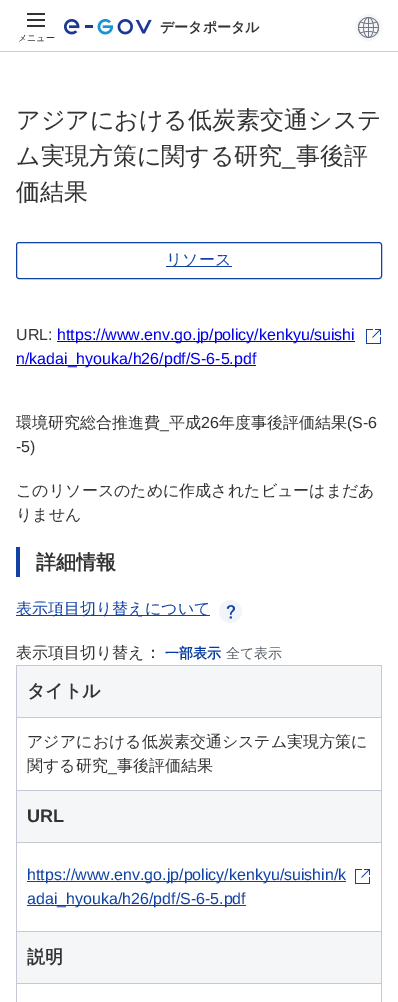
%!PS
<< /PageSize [398 1002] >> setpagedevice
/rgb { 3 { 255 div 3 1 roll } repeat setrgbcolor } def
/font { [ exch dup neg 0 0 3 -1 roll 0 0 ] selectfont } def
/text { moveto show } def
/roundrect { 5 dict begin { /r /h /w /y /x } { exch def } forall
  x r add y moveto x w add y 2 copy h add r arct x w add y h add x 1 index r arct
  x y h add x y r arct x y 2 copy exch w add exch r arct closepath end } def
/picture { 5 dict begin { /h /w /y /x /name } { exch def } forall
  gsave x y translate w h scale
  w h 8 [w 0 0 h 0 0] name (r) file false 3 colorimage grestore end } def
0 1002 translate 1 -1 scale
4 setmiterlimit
255 255 255 rgb
0 0 398 1002 rectfill
204 207 209 rgb
0 51 398 1 rectfill
(img_01.rgb) 64 19 88 16 picture
(img_02.rgb) 355 14 27 27 picture
51 51 51 rgb
27 13 18 2 rectfill
27 19 18 2 rectfill
27 25 18 2 rectfill
16 66 164 rgb
16.5 242.5 365 36 2.5 roundrect stroke
166 266 66 1 rectfill
0 0 238 rgb
57 341 298 1 rectfill
16 365 240 1 rectfill
(img_03.rgb) 366 329 15 15 picture
16 66 164 rgb
16 547 4 30 rectfill
16 615 194 1 rectfill
(img_04.rgb) 219 600 23 23 picture
245 246 248 rgb
17 666 364 51 rectfill
198 201 211 rgb
16 665 366 1 rectfill
381 665 1 52 rectfill
16 665 1 52 rectfill
16 717 366 1 rectfill
381 717 1 73 rectfill
16 717 1 73 rectfill
245 246 248 rgb
17 791 364 51 rectfill
198 201 211 rgb
16 790 366 1 rectfill
381 790 1 52 rectfill
16 790 1 52 rectfill
16 842 366 1 rectfill
381 842 1 89 rectfill
16 842 1 89 rectfill
16 66 164 rgb
27 881 319 1 rectfill
27 905 219 1 rectfill
(img_03.rgb) 355 869 15 15 picture
245 246 248 rgb
17 932 364 51 rectfill
198 201 211 rgb
16 931 366 1 rectfill
381 931 1 52 rectfill
16 931 1 52 rectfill
16 983 366 1 rectfill
381 983 1 19 rectfill
16 983 1 19 rectfill
/WenQuanYiZenHei-Bold 14 font
51 51 51 rgb
(データポータル) 160 32 text
/WenQuanYiZenHei-Medium 9 font
(メニュー) 18 41 text
/WenQuanYiZenHei-Medium 24 font
(アジアにおける低炭素交通システ) 16 128 text
(ム実現方策に関する研究) 16 164 text
/LiberationSans-Regular 24 font
(_) 282 164 text
/WenQuanYiZenHei-Medium 24 font
(事後評) 296 164 text
(価結果) 16 200 text
/WenQuanYiZenHei-Medium 16 font
16 66 164 rgb
(リソース) 166 265 text
/LiberationSans-Regular 16 font
51 51 51 rgb
(URL:) 16 340 text
0 0 238 rgb
(https://www.env.go.jp/policy/kenkyu/suishi) 57 340 text
(n/kadai_hyouka/h26/pdf/S-6-5.pdf) 16 364 text
/WenQuanYiZenHei-Medium 16 font
51 51 51 rgb
(環境研究総合推進費) 16 428 text
/LiberationSans-Regular 16 font
(_) 160 428 text
/WenQuanYiZenHei-Medium 16 font
(平成) 169 428 text
/LiberationSans-Regular 16 font
(26) 201 428 text
/WenQuanYiZenHei-Medium 16 font
(年度事後評価結果) 219 428 text
/LiberationSans-Regular 16 font
(\(S-6) 347 428 text
(-5\)) 16 452 text
/WenQuanYiZenHei-Medium 16 font
(このリソースのために作成されたビューはまだあ) 16 496 text
(りません) 16 520 text
/WenQuanYiZenHei-Bold 20 font
(詳細情報) 36 569 text
/WenQuanYiZenHei-Medium 16 font
16 66 164 rgb
(表示項目切り替えについて) 16 614 text
51 51 51 rgb
(表示項目切り替え：) 16 658 text
/WenQuanYiZenHei-Bold 14 font
7 58 160 rgb
(一部表示) 165 658 text
/WenQuanYiZenHei-Medium 14 font
90 96 108 rgb
(全て表示) 226 658 text
/WenQuanYiZenHei-Bold 18 font
51 51 51 rgb
(タイトル) 27 697 text
/WenQuanYiZenHei-Medium 16 font
(アジアにおける低炭素交通システム実現方策に) 27 747 text
(関する研究) 27 771 text
/LiberationSans-Regular 16 font
(_) 108 771 text
/WenQuanYiZenHei-Medium 16 font
(事後評価結果) 117 771 text
/LiberationSans-Bold 18 font
(URL) 27 822 text
/LiberationSans-Regular 16 font
16 66 164 rgb
(https://www.env.go.jp/policy/kenkyu/suishin/k) 27 880 text
(adai_hyouka/h26/pdf/S-6-5.pdf) 27 904 text
/WenQuanYiZenHei-Bold 18 font
51 51 51 rgb
(説明) 27 963 text
showpage
